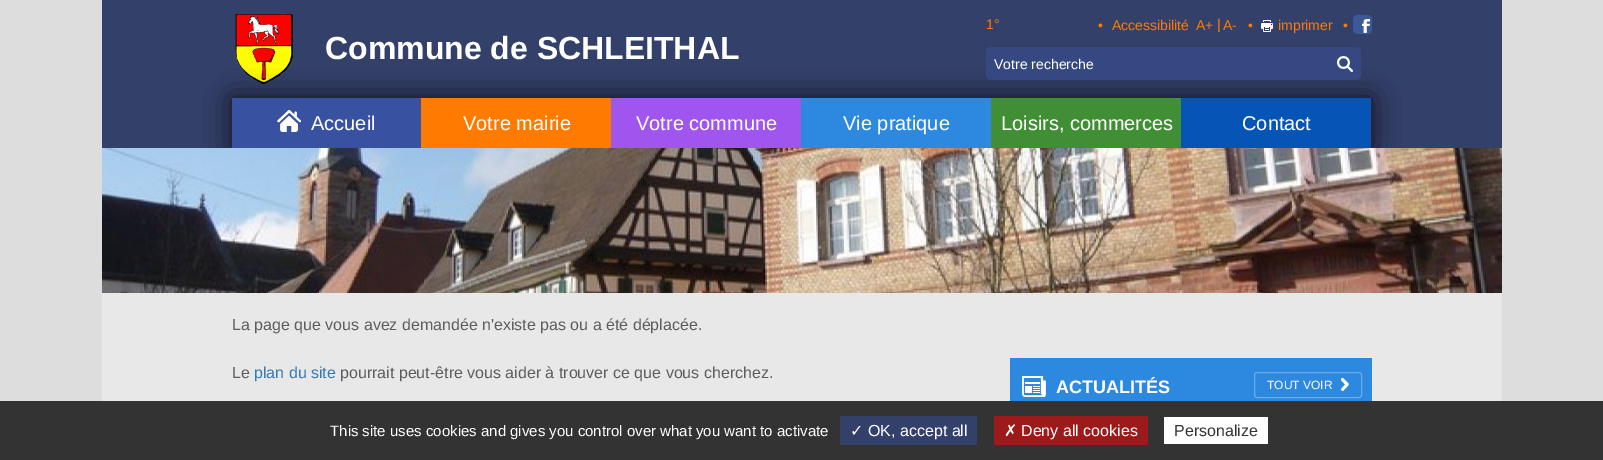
%!PS
<< /PageSize [1603 460] /PageUsesTransparency true >> setpagedevice
/rgb { 3 { 255 div 3 1 roll } repeat setrgbcolor } def
/font { [ exch dup neg 0 0 3 -1 roll 0 0 ] selectfont } def
/text { moveto show } def
/alpha { dup .setfillconstantalpha .setstrokeconstantalpha } def
/roundrect { 5 dict begin { /r /h /w /y /x } { exch def } forall
  x r add y moveto x w add y 2 copy h add r arct x w add y h add x 1 index r arct
  x y h add x y r arct x y 2 copy exch w add exch r arct closepath end } def
/shadow { 12 dict begin { /a /b /q /h /w /y /x } { exch def } forall gsave /was 0 def
  9 -2 -9 { dup b mul 4 div /e exch def 1 sub .425 mul 2.718 exch exp 1 add a .99 .min exch div /now exch def
    1 1 now sub 1 was sub div sub alpha /was now def
    w h .min e 2 mul add 0 gt { x e sub y e sub w e 2 mul add h e 2 mul add
      q e add b .6 mul add w h .min 2 div e add .min 0 .max roundrect fill } if } for grestore end } def
/picture { 5 dict begin { /h /w /y /x /name } { exch def } forall
  gsave x y translate w h scale
  w h 8 [w 0 0 h 0 0] name (r) file false 3 colorimage grestore end } def
0 .pushpdf14devicefilter
0 460 translate 1 -1 scale
4 setmiterlimit
221 221 221 rgb
0 0 1603 460 rectfill
51 64 105 rgb
102 0 1400 148 rectfill
(img_01.rgb) 1261 20 12 12 picture
(img_02.rgb) 1353 15 19 19 picture
(img_05.rgb) 235 14 58 70 picture
0 0 0 rgb
232 98 1140 50 0 13.5 0.75 shadow
53 72 130 rgb
986 47 375 33 5 roundrect fill
(img_03.rgb) 1337 56 16 16 picture
56 81 161 rgb
232 98 189 50 rectfill
(img_04.rgb) 277 110 24 22 picture
255 123 0 rgb
421 98 190 50 rectfill
161 85 239 rgb
611 98 190 50 rectfill
45 137 223 rgb
801 98 190 50 rectfill
65 143 52 rgb
991 98 190 50 rectfill
5 84 182 rgb
1181 98 190 50 rectfill
(img_06.rgb) 102 148 1400 145 picture
232 232 232 rgb
102 293 1400 108 rectfill
45 137 224 rgb
1010 358 362 43 rectfill
(img_07.rgb) 1022 376 24 21 picture
106 171 232 rgb
1254.5 372.5 107 25 2.5 roundrect stroke
(img_08.rgb) 1341 378 8 13 picture
51 51 51 rgb
0 401 1603 59 rectfill
51 64 105 rgb
840 416 137 29 rectfill
156 26 26 rgb
994 416 154 29 rectfill
255 255 255 rgb
1164 417 104 27 rectfill
/LiberationSans-Regular 14 font
255 123 0 rgb
(1°) 986 29 text
(•) 1098 30 text
(Accessibilité) 1112 30 text
(A+) 1196 30 text
(|) 1217 29 text
(A-) 1223 30 text
(•) 1248 30 text
(imprimer) 1278 30 text
(•) 1343 30 text
255 255 255 rgb
(Votre recherche) 994 69 text
/LiberationSans-Regular 20 font
(Accueil) 311 130 text
(Votre mairie) 463 130 text
(Votre commune) 636 130 text
(Vie pratique) 843 130 text
(Loisirs, commerces) 1001 130 text
(Contact) 1242 130 text
/LiberationSans-Bold 32 font
(Commune de SCHLEITHAL) 325 59 text
/LiberationSans-Regular 16 font
93 93 93 rgb
(La page que vous avez demandée n'existe pas ou a été déplacée.) 232 330 text
(Le) 232 378 text
51 122 183 rgb
(plan du site) 254 378 text
93 93 93 rgb
(pourrait peut-être vous aider à trouver ce que vous cherchez.) 340 378 text
/LiberationSans-Bold 18 font
255 255 255 rgb
(ACTUALITÉS) 1056 393 text
/LiberationSans-Regular 12 font
(TOUT VOIR) 1267 389 text
/LiberationSans-Regular 15 font
(This site uses cookies and gives you control over what you want to activate) 330 436 text
/DejaVuSans-Regular 16 font
(✓) 850 436 text
/LiberationSans-Regular 16 font
(OK, accept all) 868 436 text
/DejaVuSans-Regular 16 font
(✗) 1004 436 text
/LiberationSans-Regular 16 font
(Deny all cookies) 1021 436 text
51 51 51 rgb
(Personalize) 1174 436 text
.poppdf14devicefilter showpage
